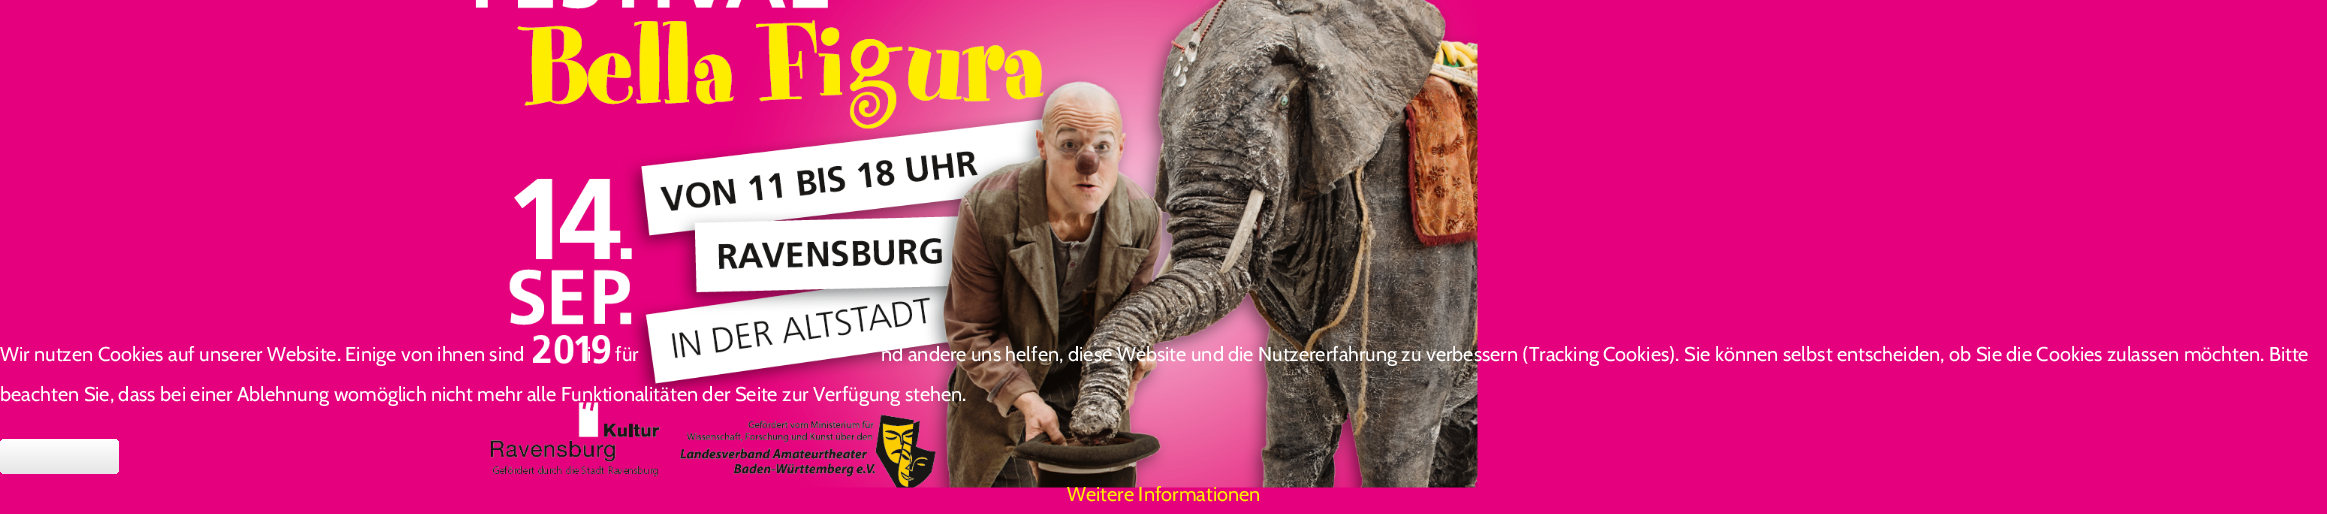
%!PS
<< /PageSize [2327 514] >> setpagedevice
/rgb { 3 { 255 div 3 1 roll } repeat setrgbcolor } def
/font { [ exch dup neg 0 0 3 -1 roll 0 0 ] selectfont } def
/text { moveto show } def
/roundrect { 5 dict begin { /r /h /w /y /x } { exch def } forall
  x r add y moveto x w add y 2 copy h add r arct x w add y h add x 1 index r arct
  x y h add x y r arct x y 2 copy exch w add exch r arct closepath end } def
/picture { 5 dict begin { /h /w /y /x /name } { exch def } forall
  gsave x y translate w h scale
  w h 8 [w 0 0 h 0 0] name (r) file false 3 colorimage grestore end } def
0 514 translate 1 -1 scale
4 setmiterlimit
229 0 125 rgb
0 0 2327 514 rectfill
(img_01.rgb) 475 0 1003 488 picture
gsave 0 439 119 35 5 roundrect clip newpath
<< /ShadingType 2 /ColorSpace /DeviceRGB /Coords [59 439 59 474] /Extend [true true] /Function << /FunctionType 2 /Domain [0 1] /C0 [1 1 1] /C1 [0.902 0.902 0.902] /N 1 >> >> shfill grestore
/Cabin-Regular 20 font
255 255 255 rgb
(Wir nutzen Cookies auf unserer Website. Einige von ihnen sind) 0 361 text
(i) 587 361 text
(für) 615 361 text
(nd andere uns helfen, diese Website und die Nutzererfahrung zu verbessern \(Tracking Cookies\). Sie können selbst entscheiden, ob Sie die Cookies zulassen möchten. Bitte) 881 361 text
(beachten Sie, dass bei einer Ablehnung womöglich nicht mehr alle Funktionalitäten der Seite zur Verfügung stehen.) 0 401 text
255 238 0 rgb
(Weitere Informationen) 1067 501 text
showpage
